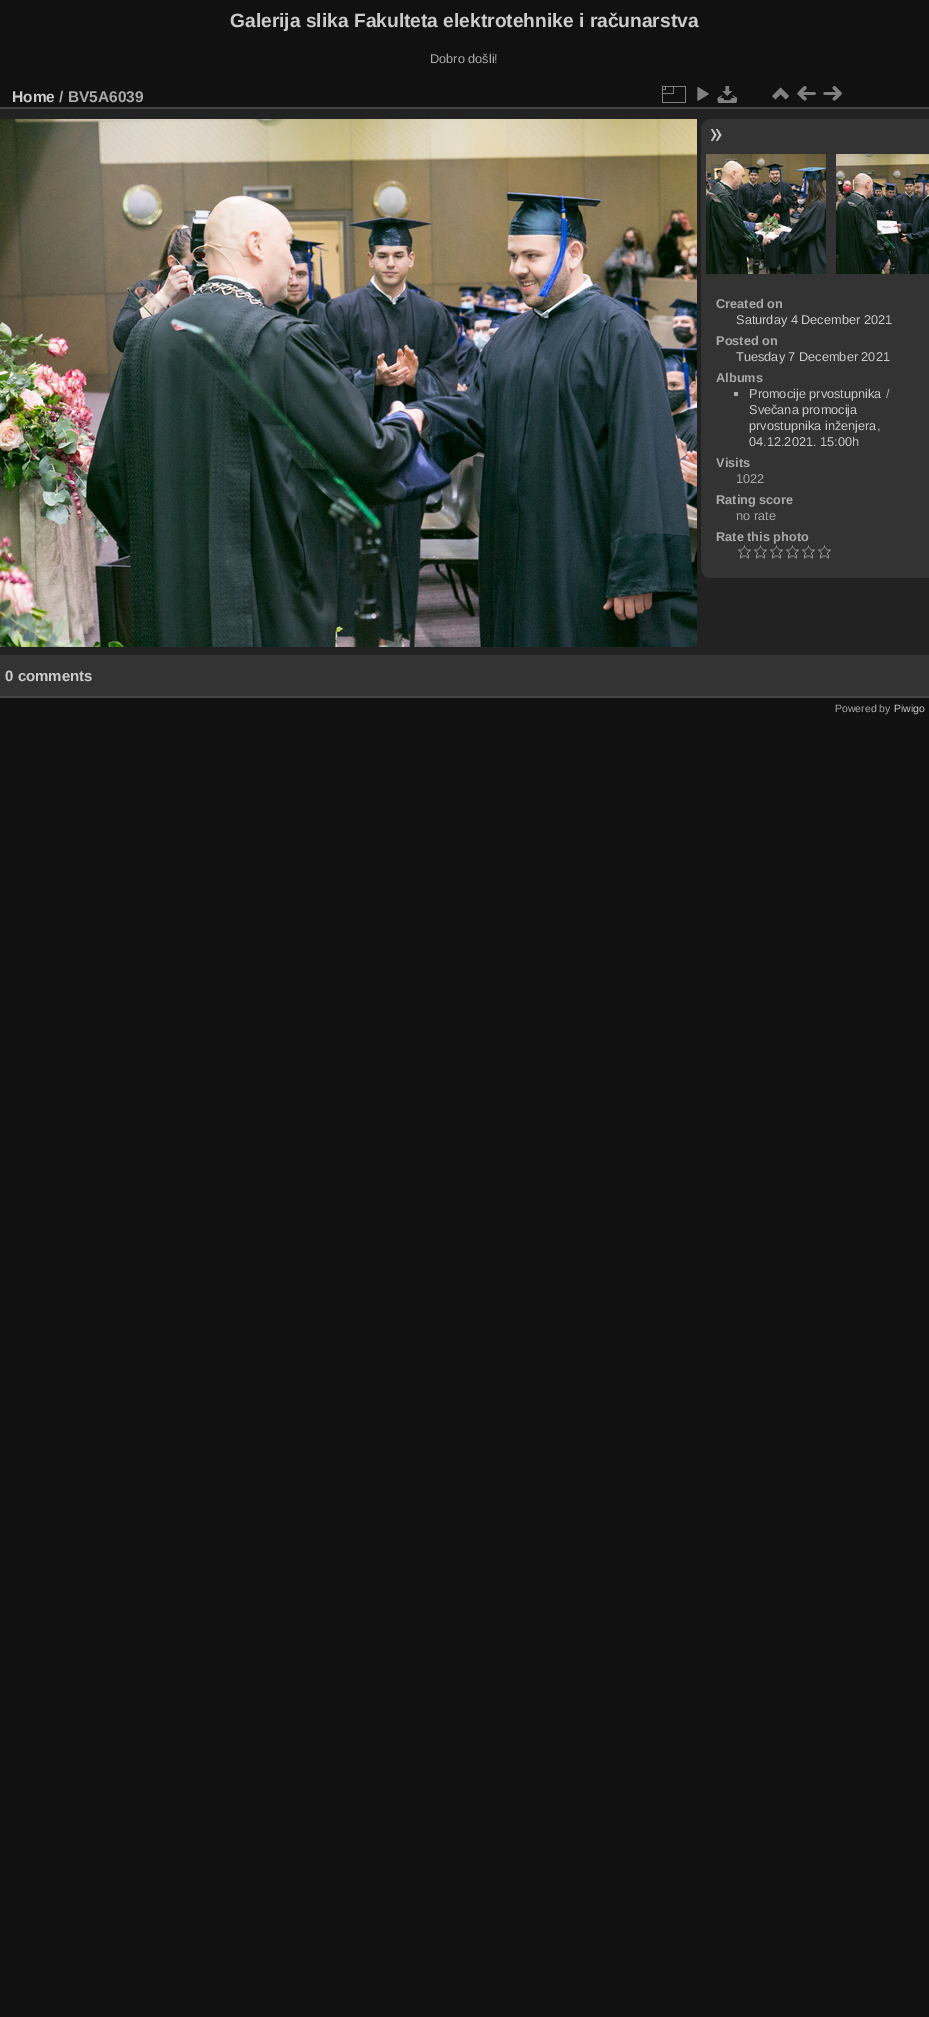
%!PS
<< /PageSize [929 2017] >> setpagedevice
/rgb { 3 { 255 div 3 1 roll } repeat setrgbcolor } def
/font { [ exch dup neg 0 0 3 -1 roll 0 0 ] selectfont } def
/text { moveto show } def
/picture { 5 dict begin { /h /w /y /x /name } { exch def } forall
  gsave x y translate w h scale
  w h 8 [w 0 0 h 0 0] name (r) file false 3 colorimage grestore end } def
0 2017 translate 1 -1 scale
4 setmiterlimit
17 17 17 rgb
0 0 929 2017 rectfill
34 34 34 rgb
0 109 929 546 rectfill
68 68 68 rgb
0 696 929 2 rectfill
0 107 929 2 rectfill
(img_01.rgb) 662 86 24 17 picture
(img_02.rgb) 697 87 12 14 picture
(img_03.rgb) 717 86 21 17 picture
(img_04.rgb) 772 87 17 13 picture
(img_05.rgb) 797 86 19 15 picture
(img_06.rgb) 823 86 19 15 picture
(img_07.rgb) 0 119 697 528 picture
51 51 51 rgb
711 119 moveto 218 0 rlineto 0 459 rlineto -218 0 rlineto -5.5 0 -10 -4.5 -10 -10 rcurveto 0 -439 rlineto 0 -5.5 4.5 -10 10 -10 rcurveto closepath fill
(img_08.rgb) 710 129 12 12 picture
(img_09.rgb) 706 154 120 120 picture
(img_10.rgb) 836 154 93 120 picture
170 170 170 rgb
734 392 4 4 rectfill
(img_11.rgb) 738 545 13 14 picture
(img_11.rgb) 754 545 13 14 picture
(img_11.rgb) 770 545 13 14 picture
(img_11.rgb) 786 545 13 14 picture
(img_11.rgb) 802 545 13 14 picture
(img_11.rgb) 818 545 13 14 picture
51 51 51 rgb
0 655 929 41 rectfill
/LiberationSans-Bold 19.2 font
204 204 204 rgb
(Galerija slika Fakulteta elektrotehnike i računarstva) 230 27 text
/LiberationSans-Regular 12.75 font
170 170 170 rgb
(Dobro došli!) 430 63 text
/LiberationSans-Bold 15.5 font
204 204 204 rgb
(Home) 12 102 text
170 170 170 rgb
(/ BV5A6039) 59 102 text
/LiberationSans-Bold 12.75 font
(Created on) 716 308 text
/LiberationSans-Regular 12.75 font
204 204 204 rgb
(Saturday 4 December 2021) 736 324 text
/LiberationSans-Bold 12.75 font
170 170 170 rgb
(Posted on) 716 345 text
/LiberationSans-Regular 12.75 font
204 204 204 rgb
(Tuesday 7 December 2021) 736 361 text
/LiberationSans-Bold 12.75 font
170 170 170 rgb
(Albums) 716 382 text
/LiberationSans-Regular 12.75 font
204 204 204 rgb
(Promocije prvostupnika) 749 398 text
170 170 170 rgb
(/) 886 398 text
204 204 204 rgb
(Svečana promocija) 749 414 text
(prvostupnika inženjera,) 749 430 text
(04.12.2021. 15:00h) 749 446 text
/LiberationSans-Bold 12.75 font
170 170 170 rgb
(Visits) 716 467 text
/LiberationSans-Regular 12.75 font
(1022) 736 483 text
/LiberationSans-Bold 12.75 font
(Rating score) 716 504 text
/LiberationSans-Regular 12.75 font
(no rate) 736 520 text
/LiberationSans-Bold 12.75 font
(Rate this photo) 716 541 text
/LiberationSans-Bold 15 font
204 204 204 rgb
(0 comments) 5 681 text
/LiberationSans-Regular 10.5 font
170 170 170 rgb
(Powered by) 835 712 text
204 204 204 rgb
(Piwigo) 894 712 text
showpage
